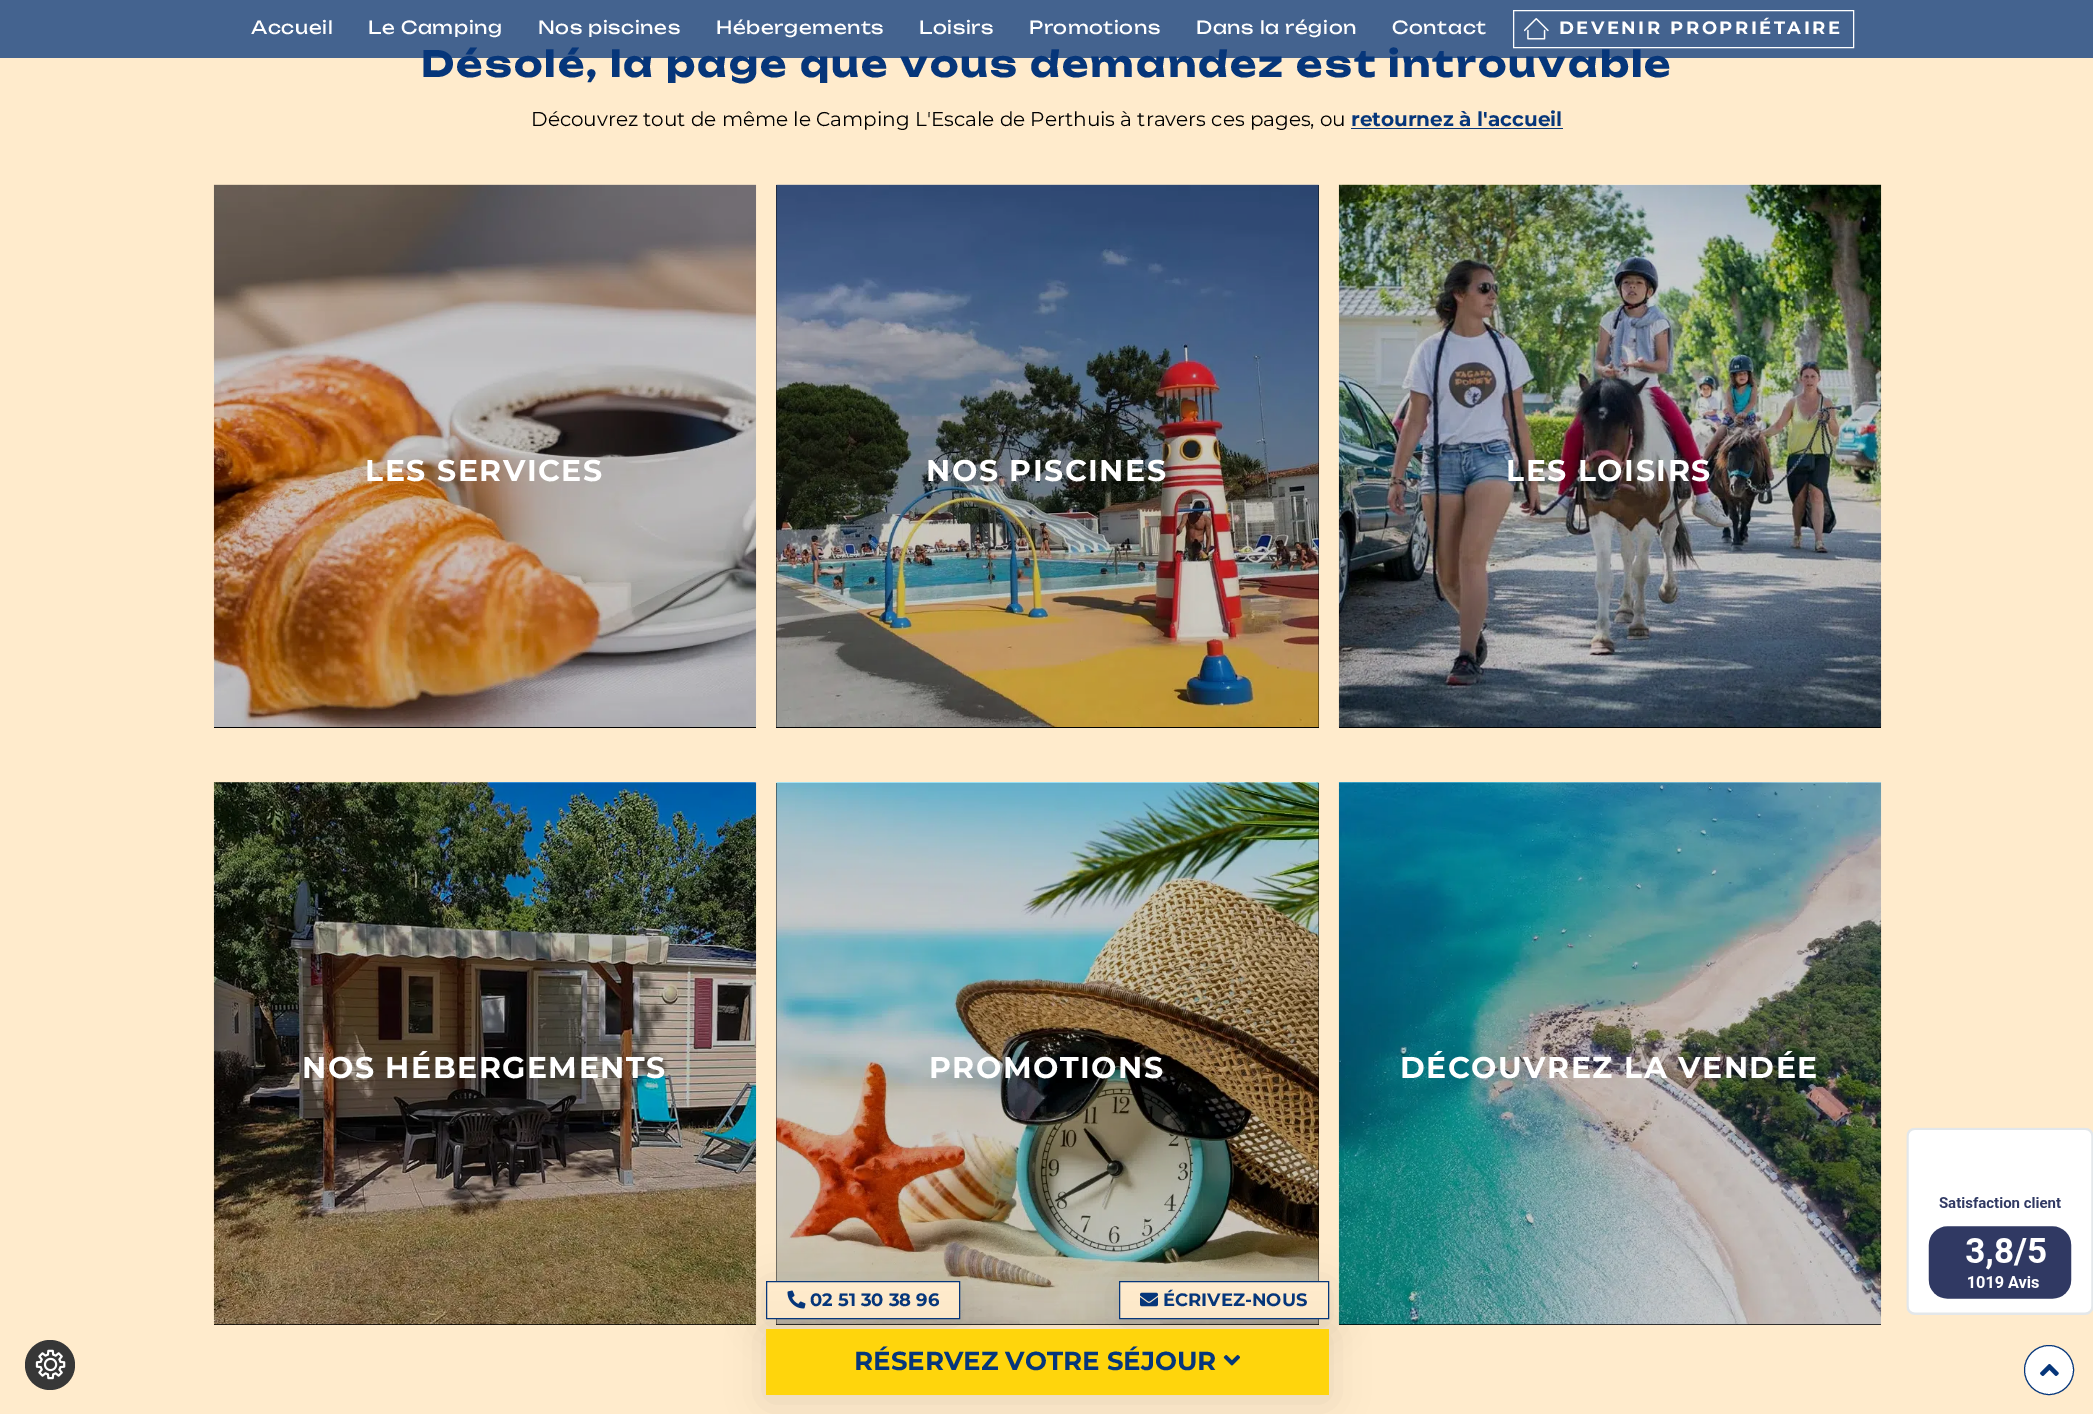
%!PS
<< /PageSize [2093 1414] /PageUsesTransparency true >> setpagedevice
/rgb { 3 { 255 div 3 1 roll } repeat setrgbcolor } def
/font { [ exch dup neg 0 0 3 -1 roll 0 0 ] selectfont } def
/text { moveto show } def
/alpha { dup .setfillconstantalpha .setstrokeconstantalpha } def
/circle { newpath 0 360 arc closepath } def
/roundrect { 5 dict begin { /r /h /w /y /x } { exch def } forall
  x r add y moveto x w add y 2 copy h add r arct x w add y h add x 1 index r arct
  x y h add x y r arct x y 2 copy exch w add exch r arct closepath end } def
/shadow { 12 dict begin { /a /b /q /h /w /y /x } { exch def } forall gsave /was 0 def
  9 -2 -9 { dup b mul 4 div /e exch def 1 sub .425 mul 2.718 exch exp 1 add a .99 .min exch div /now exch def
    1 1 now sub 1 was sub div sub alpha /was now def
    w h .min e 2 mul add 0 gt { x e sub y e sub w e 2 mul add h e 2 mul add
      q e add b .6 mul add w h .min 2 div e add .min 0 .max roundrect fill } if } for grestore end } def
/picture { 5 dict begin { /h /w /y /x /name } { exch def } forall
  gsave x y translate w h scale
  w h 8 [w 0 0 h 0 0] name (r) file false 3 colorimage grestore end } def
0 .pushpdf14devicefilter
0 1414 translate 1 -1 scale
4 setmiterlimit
255 235 204 rgb
0 0 2093 1414 rectfill
6 54 122 rgb
1351 128 212 1 rectfill
0 0 0 rgb
214 185 542 543 rectfill
(img_02.rgb) 213 184 544 543 picture
776 185 543 543 rectfill
(img_03.rgb) 776 184 543 543 picture
1339 185 542 543 rectfill
(img_04.rgb) 1338 184 544 543 picture
214 783 542 542 rectfill
(img_05.rgb) 213 782 544 543 picture
776 783 543 542 rectfill
(img_06.rgb) 776 782 543 543 picture
1339 783 542 542 rectfill
(img_07.rgb) 1338 782 544 543 picture
(img_08.rgb) 1906 1127 187 188 picture
55 55 55 rgb
50 1365 25 circle fill
(img_09.rgb) 35 1349 31 31 picture
0 0 0 rgb
766 1286 194 38 0 19 0.1 shadow
255 235 204 rgb
766.5 1281.5 moveto 193 0 rlineto 0 37 rlineto -193 0 rlineto closepath gsave fill grestore
6 54 122 rgb
stroke
(img_10.rgb) 787 1290 19 19 picture
0 0 0 rgb
1119 1286 210 38 0 19 0.1 shadow
255 235 204 rgb
1119.5 1281.5 moveto 209 0 rlineto 0 37 rlineto -209 0 rlineto closepath gsave fill grestore
6 54 122 rgb
stroke
(img_11.rgb) 1140 1292 18 15 picture
0 0 0 rgb
766 1334 563 66 0 19 0.1 shadow
255 213 12 rgb
766 1329 563 66 rectfill
(img_12.rgb) 1223 1355 17 11 picture
255 255 255 rgb
2049 1370 24.5 circle gsave fill grestore
6 54 122 rgb
stroke
(img_13.rgb) 2040 1364 19 12 picture
/Unbounded-Bold 36 font
421 77 moveto 2 0 (Désolé, la page que vous demandez est introuvable) ashow
0.75 alpha
0 0 2093 58 rectfill
/Unbounded-Regular 18 font
1 alpha
255 255 255 rgb
1392 34 moveto 0.6 0 (Contact) ashow
1196 34 moveto 0.6 0 (Dans la région) ashow
1029 34 moveto 0.6 0 (Promotions) ashow
919 34 moveto 0.6 0 (Loisirs) ashow
716 34 moveto 0.6 0 (Hébergements) ashow
538 34 moveto 0.6 0 (Nos piscines) ashow
368 34 moveto 0.6 0 (Le Camping) ashow
251 34 moveto 0.6 0 (Accueil) ashow
1513.5 10.5 340 37 rectstroke
(img_01.rgb) 1524 18 25 22 picture
/Montserrat-Bold 18 font
1559 34 moveto 2.5 0 (DEVENIR PROPRIÉTAIRE) ashow
/Montserrat-Regular 20 font
0 0 0 rgb
(Découvrez tout de même le Camping L'Escale de Perthuis à travers ces pages, ou) 531 126 text
/Montserrat-Bold 20 font
6 54 122 rgb
(retournez à l'accueil) 1351 126 text
/Montserrat-Bold 30 font
255 255 255 rgb
365 481 moveto 1.5 0 (LES SERVICES) ashow
926 481 moveto 1.5 0 (NOS PISCINES) ashow
1506 481 moveto 1.5 0 (LES LOISIRS) ashow
302 1078 moveto 1.5 0 (NOS HÉBERGEMENTS) ashow
929 1078 moveto 1.5 0 (PROMOTIONS) ashow
1400 1078 moveto 1.5 0 (DÉCOUVREZ LA VENDÉE) ashow
/Montserrat-Bold 18 font
6 54 122 rgb
(02 51 30 38 96) 810 1306 text
(ÉCRIVEZ-NOUS) 1163 1306 text
/Montserrat-Bold 26 font
(RÉSERVEZ VOTRE SÉJOUR) 854 1370 text
.poppdf14devicefilter showpage
